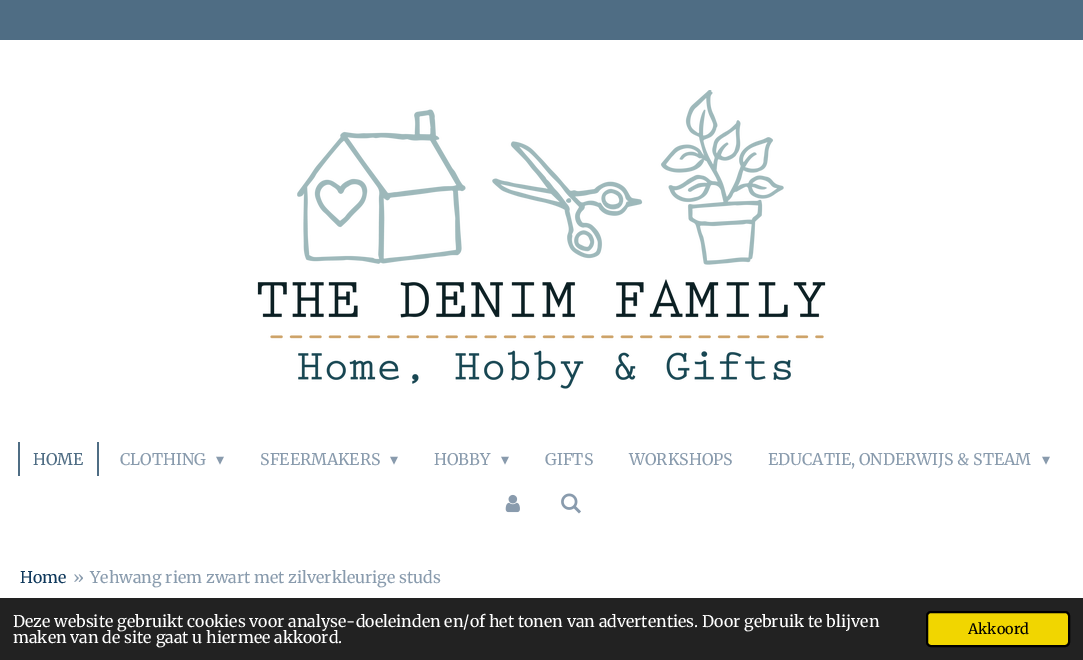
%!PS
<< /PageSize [1083 660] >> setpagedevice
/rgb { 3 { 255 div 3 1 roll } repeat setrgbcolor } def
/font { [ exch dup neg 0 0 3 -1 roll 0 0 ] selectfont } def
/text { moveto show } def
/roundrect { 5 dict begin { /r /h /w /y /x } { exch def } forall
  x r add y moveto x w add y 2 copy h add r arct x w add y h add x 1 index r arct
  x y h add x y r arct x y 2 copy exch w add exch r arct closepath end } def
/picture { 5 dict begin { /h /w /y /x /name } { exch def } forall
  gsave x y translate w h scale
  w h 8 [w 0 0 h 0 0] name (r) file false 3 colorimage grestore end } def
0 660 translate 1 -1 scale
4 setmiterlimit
255 255 255 rgb
0 0 1083 660 rectfill
79 109 132 rgb
0 0 1083 40 rectfill
(img_01.rgb) 257 90 569 299 picture
97 442 2 34 rectfill
18 442 2 34 rectfill
(img_02.rgb) 505 494 15 19 picture
(img_03.rgb) 561 493 20 21 picture
34 34 34 rgb
0 598 1083 62 rectfill
241 214 0 rgb
927 612 142 34 4 roundrect gsave fill grestore
0 0 0 rgb
2 setlinewidth
stroke
/Merriweather-Regular 16 font
79 109 132 rgb
(HOME) 33 465 text
137 155 173 rgb
(CLOTHING) 120 465 text
/DejaVuSans-Regular 16 font
(▾) 216 465 text
/Merriweather-Regular 16 font
(SFEERMAKERS) 260 465 text
/DejaVuSans-Regular 16 font
(▾) 390 465 text
/Merriweather-Regular 16 font
(HOBBY) 434 465 text
/DejaVuSans-Regular 16 font
(▾) 501 465 text
/Merriweather-Regular 16 font
(GIFTS) 545 465 text
(WORKSHOPS) 629 465 text
(EDUCATIE, ONDERWIJS & STEAM) 768 465 text
/DejaVuSans-Regular 16 font
(▾) 1042 465 text
/Merriweather-Regular 16 font
16 57 92 rgb
(Home) 20 583 text
137 155 173 rgb
(») 73 583 text
(Yehwang riem zwart met zilverkleurige studs) 90 583 text
255 255 255 rgb
(Deze website gebruikt cookies voor analyse-doeleinden en/of het tonen van advertenties. Door gebruik te blijven) 13 627 text
(maken van de site gaat u hiermee akkoord.) 13 643 text
/Merriweather-Regular 14.5 font
0 0 0 rgb
(Akkoord) 968 634 text
showpage
